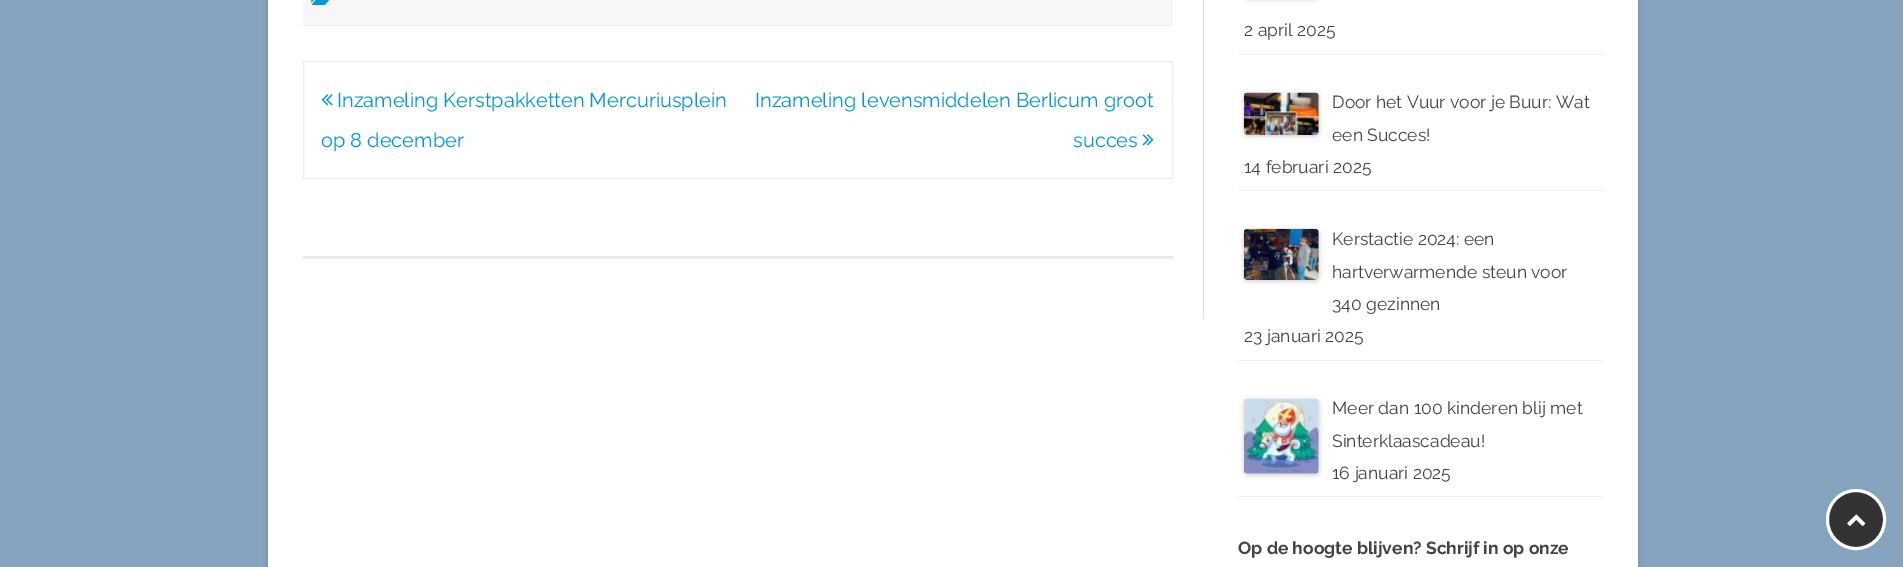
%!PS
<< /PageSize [1903 567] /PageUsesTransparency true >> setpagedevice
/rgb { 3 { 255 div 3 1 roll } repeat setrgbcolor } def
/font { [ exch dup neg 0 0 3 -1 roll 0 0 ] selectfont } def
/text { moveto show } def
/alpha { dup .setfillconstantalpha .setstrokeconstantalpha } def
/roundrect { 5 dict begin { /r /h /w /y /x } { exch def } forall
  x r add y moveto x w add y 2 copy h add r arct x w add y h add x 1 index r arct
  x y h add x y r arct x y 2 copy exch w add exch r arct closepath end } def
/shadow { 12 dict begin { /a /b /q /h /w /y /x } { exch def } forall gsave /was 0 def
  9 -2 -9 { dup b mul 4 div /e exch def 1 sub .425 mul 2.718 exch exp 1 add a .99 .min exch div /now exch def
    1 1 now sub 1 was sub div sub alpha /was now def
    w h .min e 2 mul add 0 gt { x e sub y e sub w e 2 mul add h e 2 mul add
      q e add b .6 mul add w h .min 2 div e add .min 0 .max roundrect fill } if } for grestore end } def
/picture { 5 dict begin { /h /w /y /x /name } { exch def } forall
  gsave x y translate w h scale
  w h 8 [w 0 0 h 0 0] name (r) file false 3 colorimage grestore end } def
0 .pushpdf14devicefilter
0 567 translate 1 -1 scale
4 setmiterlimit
133 162 191 rgb
0 0 1903 567 rectfill
100 100 100 rgb
268 -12 1370 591 0 4 0.3 shadow
255 255 255 rgb
268 0 1370 567 rectfill
224 224 224 rgb
1203 0 1 319 rectfill
237 237 237 rgb
303 25 870 1 rectfill
247 247 247 rgb
303 0 870 25 rectfill
(img_01.rgb) 311 0 19 5 picture
237 237 237 rgb
303.5 61.5 869 117 rectstroke
(img_02.rgb) 321 94 12 12 picture
(img_03.rgb) 1142 134 12 12 picture
234 234 234 rgb
303 256 870 3 rectfill
242 242 242 rgb
1238 54 365 1 rectfill
0 0 0 rgb
1244 -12 75 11 4 2.5 0.2 shadow
242 242 242 rgb
1238 190 365 1 rectfill
gsave
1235 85 moveto 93 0 rlineto 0 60 rlineto -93 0 rlineto closepath 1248 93 moveto 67 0 rlineto 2 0 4 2 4 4 rcurveto 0 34 rlineto 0 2 -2 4 -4 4 rcurveto -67 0 rlineto -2 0 -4 -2 -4 -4 rcurveto 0 -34 rlineto 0 -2 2 -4 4 -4 rcurveto closepath eoclip newpath
0 0 0 rgb
1244 94 75 42 4 2.5 0.2 shadow
grestore
(img_04.rgb) 1243 92 76 43 picture
1238 360 365 1 rectfill
0 0 0 rgb
1244 230 75 51 4 2.5 0.2 shadow
(img_05.rgb) 1243 228 76 52 picture
242 242 242 rgb
1238 496 365 1 rectfill
0 0 0 rgb
1244 400 75 75 4 2.5 0.2 shadow
(img_06.rgb) 1243 399 76 75 picture
51 51 51 rgb
1827.5 490.5 57 58 28.5 roundrect gsave fill grestore
255 255 255 rgb
3 setlinewidth
stroke
(img_07.rgb) 1847 514 19 12 picture
/Raleway-Regular 20 font
0 152 211 rgb
(Inzameling Kerstpakketten Mercuriusplein) 337 107 text
(op 8 december) 321 147 text
(Inzameling levensmiddelen Berlicum groot) 755 107 text
(succes) 1073 147 text
/Raleway-Regular 17.5 font
68 68 68 rgb
(2 april 2025) 1244 36 text
(Door het Vuur voor je Buur: Wat) 1332 108 text
(een Succes!) 1332 141 text
(14 februari 2025) 1244 173 text
(Kerstactie 2024: een) 1332 245 text
(hartverwarmende steun voor) 1332 278 text
(340 gezinnen) 1332 310 text
(23 januari 2025) 1244 342 text
(Meer dan 100 kinderen blij met) 1332 414 text
(Sinterklaascadeau!) 1332 447 text
(16 januari 2025) 1332 479 text
/Raleway-Bold 17.5 font
(Op de hoogte blijven? Schrijf in op onze) 1238 554 text
.poppdf14devicefilter showpage
